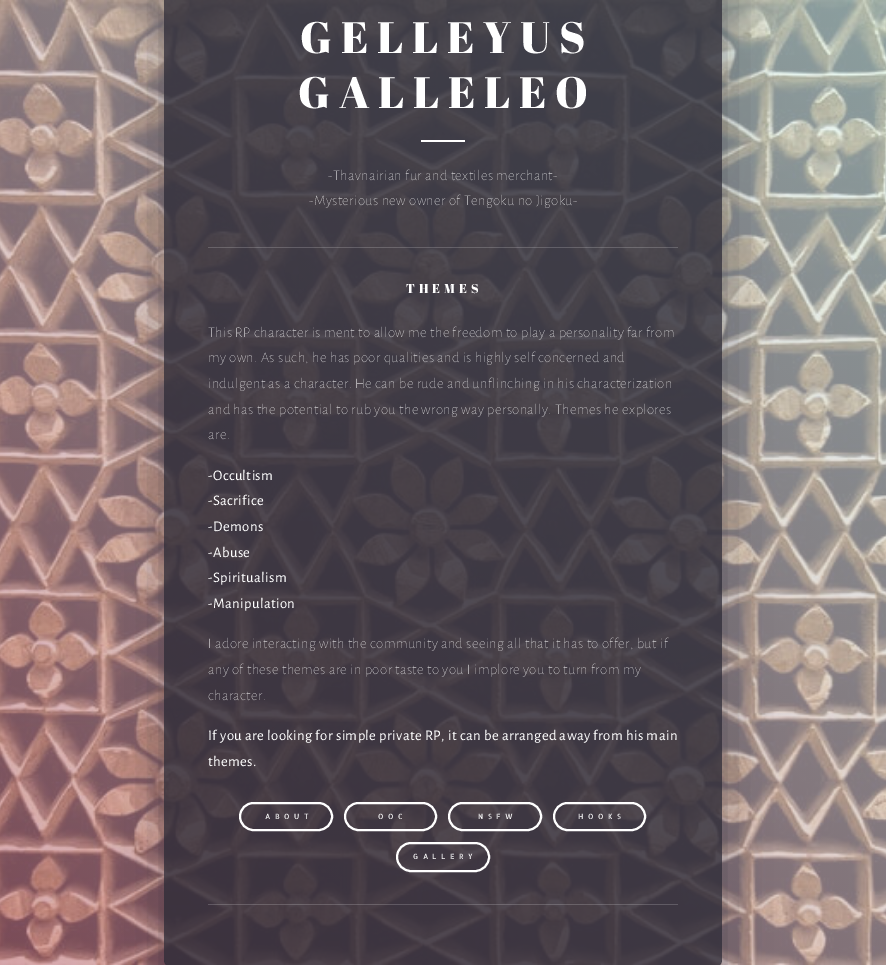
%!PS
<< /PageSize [886 965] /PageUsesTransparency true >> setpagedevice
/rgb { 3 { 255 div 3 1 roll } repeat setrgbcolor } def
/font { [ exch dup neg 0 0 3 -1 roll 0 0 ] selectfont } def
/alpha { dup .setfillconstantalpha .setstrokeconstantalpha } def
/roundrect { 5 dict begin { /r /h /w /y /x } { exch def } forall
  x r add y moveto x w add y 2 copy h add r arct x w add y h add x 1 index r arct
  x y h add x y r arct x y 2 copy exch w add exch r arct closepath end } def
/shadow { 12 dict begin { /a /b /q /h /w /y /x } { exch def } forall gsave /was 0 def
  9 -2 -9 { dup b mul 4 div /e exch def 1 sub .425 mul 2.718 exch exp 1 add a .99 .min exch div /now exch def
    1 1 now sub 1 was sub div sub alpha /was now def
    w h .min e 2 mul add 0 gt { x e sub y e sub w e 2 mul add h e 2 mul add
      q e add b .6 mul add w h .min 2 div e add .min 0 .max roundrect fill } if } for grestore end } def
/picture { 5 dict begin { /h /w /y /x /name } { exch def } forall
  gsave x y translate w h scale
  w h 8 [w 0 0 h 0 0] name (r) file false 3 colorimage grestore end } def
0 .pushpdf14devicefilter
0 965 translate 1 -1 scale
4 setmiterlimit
255 255 255 rgb
0 0 886 965 rectfill
(img_01.rgb) 0 0 886 965 picture
gsave
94 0 moveto 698 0 rlineto 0 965 rlineto -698 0 rlineto closepath 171 -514 moveto 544 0 rlineto 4 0 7 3 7 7 rcurveto 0 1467 rlineto 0 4 -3 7 -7 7 rcurveto -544 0 rlineto -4 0 -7 -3 -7 -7 rcurveto 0 -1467 rlineto 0 -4 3 -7 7 -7 rcurveto closepath eoclip newpath
44 42 54 rgb
164 -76 558 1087 7 23 0.45 shadow
grestore
0.8 alpha
44 42 54 rgb
164 -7 558 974 7 roundrect fill
1 alpha
255 255 255 rgb
421 140 44 2 rectfill
0.18 alpha
208 247 470 1 rectfill
1 alpha
2 setlinewidth
240 803 92 27 13.5 roundrect stroke
345 803 91 27 13.5 roundrect stroke
449 803 92 27 13.5 roundrect stroke
554 803 91 27 13.5 roundrect stroke
397 843 92 28 14 roundrect stroke
0.18 alpha
208 904 470 1 rectfill
/AbrilFatface-Regular 44 font
1 alpha
300 53 moveto 8.75 0 (GELLEYUS) ashow
298 108 moveto 8.75 0 (GALLELEO) ashow
/AlegreyaSans-Thin 14.7 font
328 180 moveto 0.37 0 (-Thavnairian fur and textiles merchant-) ashow
309 205 moveto 0.37 0 (-Mysterious new owner of Tengoku no Jigoku-) ashow
/AbrilFatface-Regular 12.75 font
406 293 moveto 4 0 (THEMES) ashow
/AlegreyaSans-Thin 14.7 font
208 337 moveto 0.37 0 (This RP character is ment to allow me the freedom to play a personality far from) ashow
208 362 moveto 0.37 0 (my own. As such, he has poor qualities and is highly self concerned and) ashow
208 388 moveto 0.37 0 (indulgent as a character. He can be rude and unflinching in his characterization) ashow
208 414 moveto 0.37 0 (and has the potential to rub you the wrong way personally. Themes he explores) ashow
208 439 moveto 0.37 0 (are.) ashow
/AlegreyaSans-Regular 14.7 font
208 480 moveto 0.37 0 (-Occultism) ashow
208 505 moveto 0.37 0 (-Sacrifice) ashow
208 531 moveto 0.37 0 (-Demons) ashow
208 557 moveto 0.37 0 (-Abuse) ashow
208 582 moveto 0.37 0 (-Spiritualism) ashow
208 608 moveto 0.37 0 (-Manipulation) ashow
/AlegreyaSans-Thin 14.7 font
208 648 moveto 0.37 0 (I adore interacting with the community and seeing all that it has to offer, but if) ashow
208 674 moveto 0.37 0 (any of these themes are in poor taste to you I implore you to turn from my) ashow
208 700 moveto 0.37 0 (character.) ashow
/AlegreyaSans-Regular 14.7 font
208 740 moveto 0.37 0 (If you are looking for simple private RP, it can be arranged away from his main) ashow
208 766 moveto 0.37 0 (themes.) ashow
/AllertaStencil-Regular 7.25 font
265 819 moveto 4.5 0 (ABOUT) ashow
378 819 moveto 4.5 0 (OOC) ashow
478 819 moveto 4.5 0 (NSFW) ashow
578 819 moveto 4.5 0 (HOOKS) ashow
413 859 moveto 4.5 0 (GALLERY) ashow
.poppdf14devicefilter showpage
